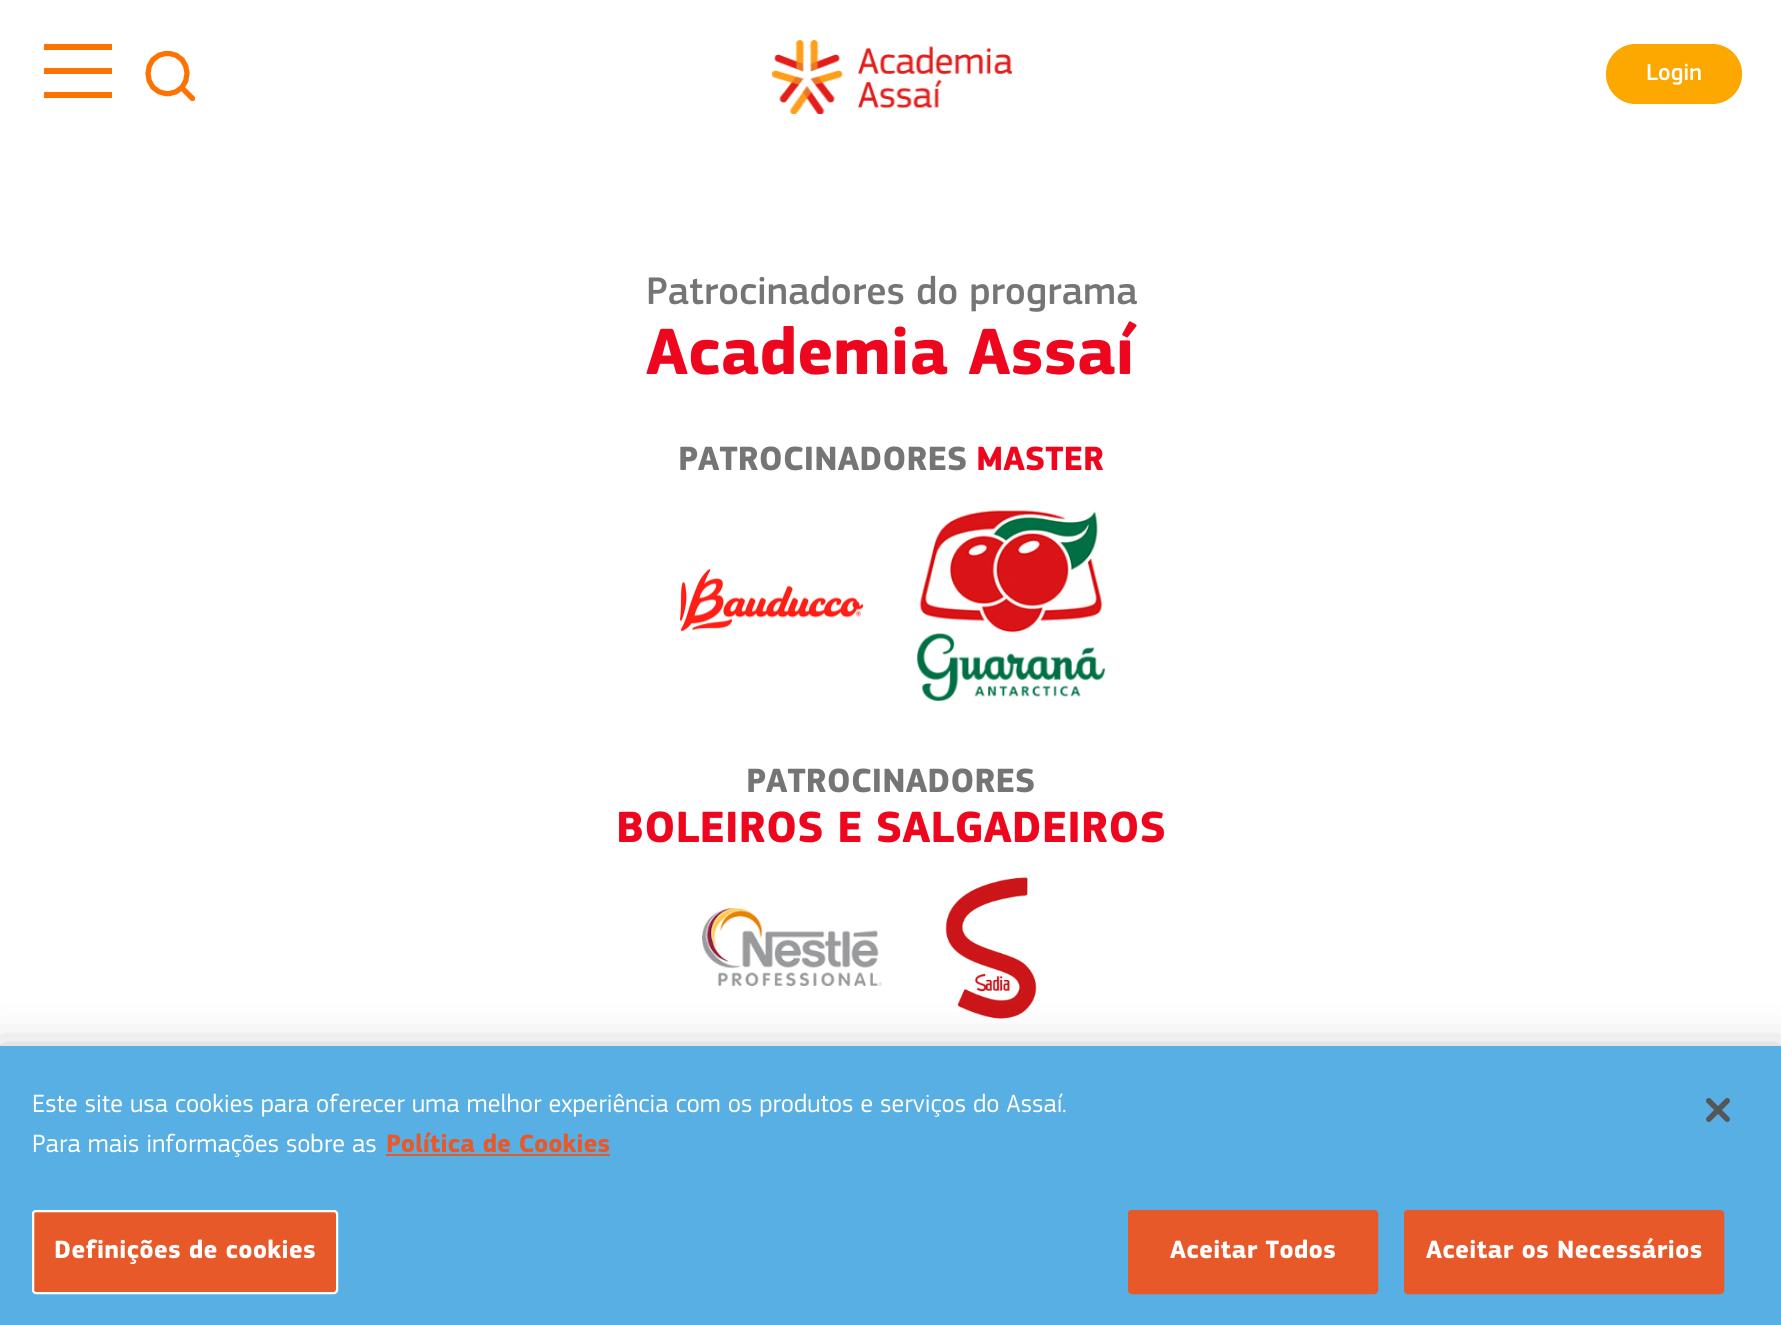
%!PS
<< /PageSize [1781 1325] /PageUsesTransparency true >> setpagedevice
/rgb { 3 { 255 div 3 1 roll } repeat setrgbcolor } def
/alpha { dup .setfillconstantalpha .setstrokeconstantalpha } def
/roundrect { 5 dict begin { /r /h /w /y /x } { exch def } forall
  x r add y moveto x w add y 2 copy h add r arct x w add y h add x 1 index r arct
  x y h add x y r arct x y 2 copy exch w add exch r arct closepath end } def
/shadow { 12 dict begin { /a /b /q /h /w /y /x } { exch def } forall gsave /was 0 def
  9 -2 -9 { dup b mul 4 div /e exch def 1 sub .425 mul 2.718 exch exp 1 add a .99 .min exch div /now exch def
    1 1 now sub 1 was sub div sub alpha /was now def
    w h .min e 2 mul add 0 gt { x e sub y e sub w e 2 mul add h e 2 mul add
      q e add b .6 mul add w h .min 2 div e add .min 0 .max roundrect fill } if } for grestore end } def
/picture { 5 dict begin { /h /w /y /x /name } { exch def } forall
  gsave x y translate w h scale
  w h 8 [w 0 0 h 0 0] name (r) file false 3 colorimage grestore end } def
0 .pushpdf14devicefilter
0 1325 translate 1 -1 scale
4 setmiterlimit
255 255 255 rgb
0 0 1781 1325 rectfill
253 115 1 rgb
44 44 68 6 rectfill
44 68 68 6 rectfill
44 92 68 6 rectfill
5 setlinewidth
1 setlinecap
1 setlinejoin
167.5 93.5 moveto 26 0 26 -40 0 -40 rcurveto -26 0 -26 40 0 40 rcurveto closepath 192.5 98.5 moveto -11 -11 rlineto stroke
(img_01.rgb) 771 40 241 74 picture
253 168 0 rgb
1606 44 136 60 30 roundrect fill
(img_02.rgb) 1647 63 54 22 picture
(img_03.rgb) 648 275 489 37 picture
(img_04.rgb) 646 321 491 54 picture
(img_05.rgb) 680 446 286 25 picture
(img_06.rgb) 978 446 125 25 picture
(img_07.rgb) 679 568 185 64 picture
(img_08.rgb) 917 510 189 192 picture
(img_05.rgb) 748 768 286 25 picture
(img_09.rgb) 619 811 545 32 picture
(img_10.rgb) 702 908 180 78 picture
(img_11.rgb) 945 877 92 142 picture
0 0 0 rgb
0 1046 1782 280 0 18 0.2 shadow
87 175 228 rgb
0 1046 1781 279 rectfill
(img_12.rgb) 33 1093 1033 24 picture
(img_13.rgb) 33 1133 343 24 picture
(img_14.rgb) 387 1131 223 22 picture
232 89 42 rgb
386 1154 224 2 rectfill
33 1211 304 82 3 roundrect gsave fill grestore
255 255 255 rgb
2 setlinewidth
0 setlinecap
0 setlinejoin
stroke
(img_15.rgb) 55 1239 260 26 picture
232 89 42 rgb
1129 1211 248 82 3 roundrect gsave fill grestore
stroke
(img_16.rgb) 1170 1239 165 20 picture
1405 1211 318 82 3 roundrect gsave fill grestore
stroke
(img_17.rgb) 1426 1237 276 22 picture
(img_18.rgb) 1706 1098 24 24 picture
.poppdf14devicefilter showpage
